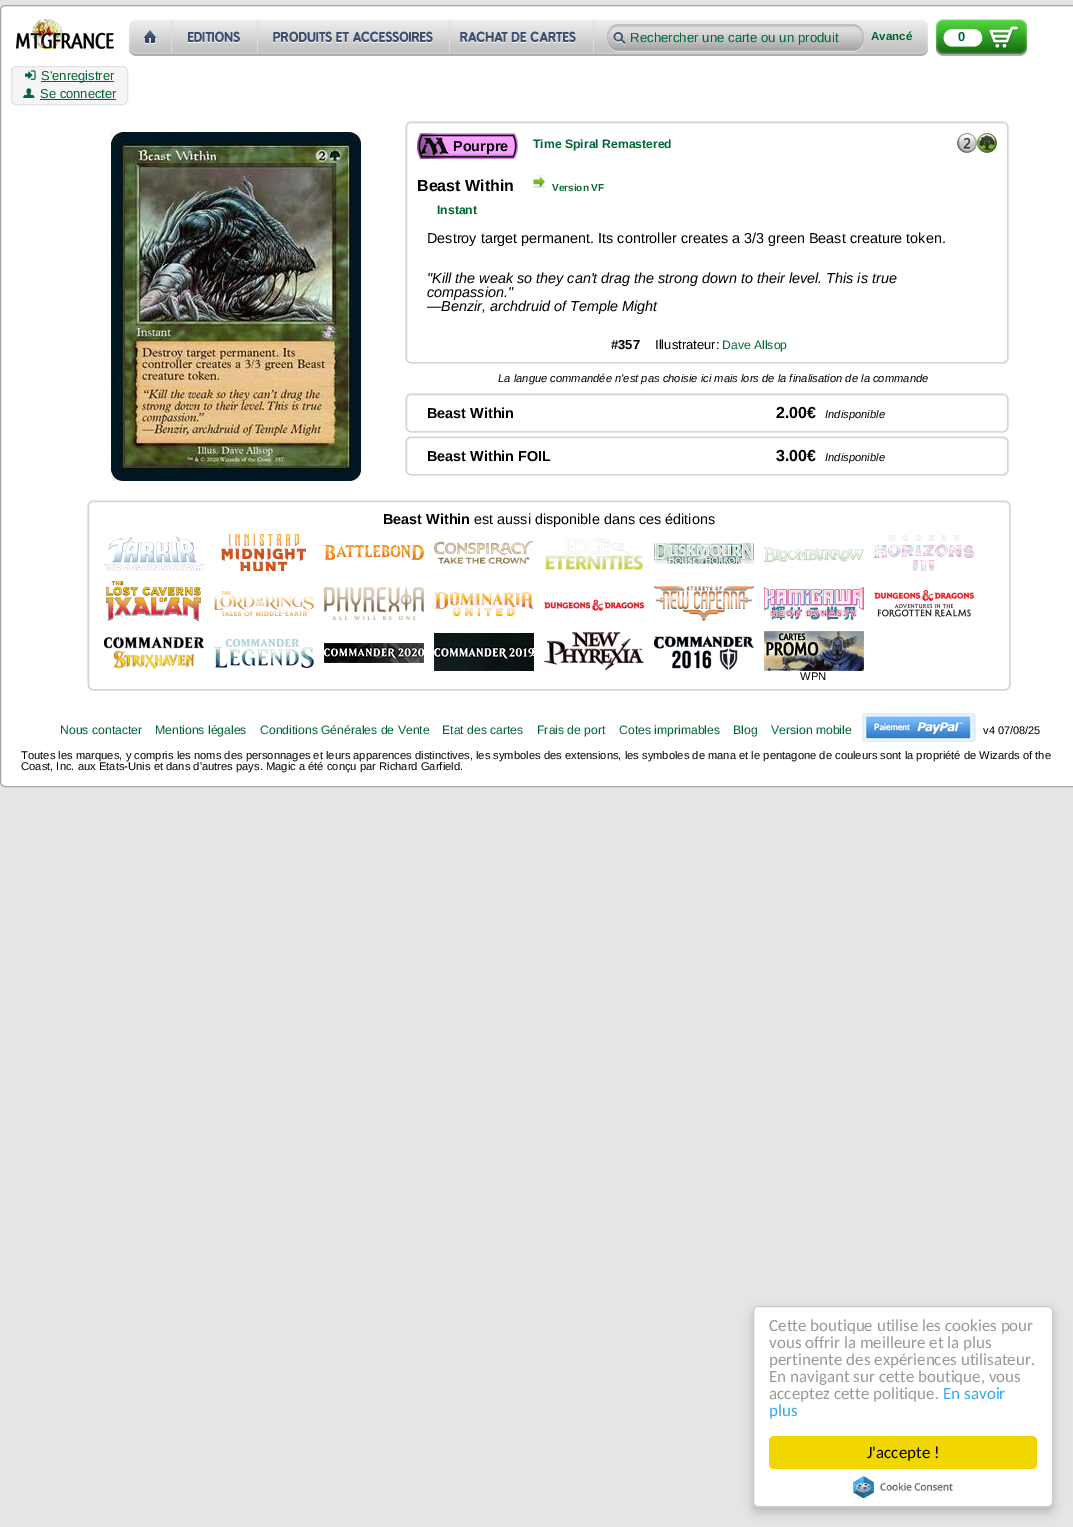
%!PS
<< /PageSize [1073 1527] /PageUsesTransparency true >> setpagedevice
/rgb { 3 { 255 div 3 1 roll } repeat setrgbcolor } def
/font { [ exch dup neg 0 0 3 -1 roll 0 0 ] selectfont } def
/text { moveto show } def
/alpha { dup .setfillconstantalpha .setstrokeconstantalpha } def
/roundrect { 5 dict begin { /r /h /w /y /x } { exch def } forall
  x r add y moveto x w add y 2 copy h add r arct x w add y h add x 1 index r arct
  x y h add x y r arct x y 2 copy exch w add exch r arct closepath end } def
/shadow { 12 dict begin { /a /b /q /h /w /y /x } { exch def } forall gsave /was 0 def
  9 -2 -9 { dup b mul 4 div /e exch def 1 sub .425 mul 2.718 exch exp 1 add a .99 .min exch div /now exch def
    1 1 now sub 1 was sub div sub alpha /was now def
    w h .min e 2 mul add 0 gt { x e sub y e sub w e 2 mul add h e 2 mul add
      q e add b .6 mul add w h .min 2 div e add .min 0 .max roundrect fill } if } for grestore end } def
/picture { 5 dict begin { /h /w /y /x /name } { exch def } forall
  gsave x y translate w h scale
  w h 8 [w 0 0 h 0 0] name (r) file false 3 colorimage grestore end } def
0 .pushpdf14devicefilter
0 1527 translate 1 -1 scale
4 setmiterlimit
229 229 229 rgb
0 0 1073 1527 rectfill
255 255 255 rgb
0.5 5.5 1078 781 4.5 roundrect gsave fill grestore
165 165 165 rgb
stroke
(img_01.rgb) 16 19 98 30 picture
(img_02.rgb) 129 19 43 37 picture
(img_03.rgb) 172 19 86 37 picture
(img_04.rgb) 258 19 192 37 picture
(img_05.rgb) 450 19 147 37 picture
(img_06.rgb) 597 19 331 37 picture
(img_07.rgb) 936 19 91 37 picture
245 245 245 rgb
11.5 66.5 116 38 4.5 roundrect gsave fill grestore
226 226 226 rgb
stroke
(img_08.rgb) 25 70 11 10 picture
0 102 51 rgb
41 81 73 1 rectfill
(img_09.rgb) 23 88 12 10 picture
40 99 76 1 rectfill
(img_10.rgb) 111 132 250 349 picture
170 170 170 rgb
406 122 602 241 5 0.5 1 shadow
255 255 255 rgb
406.5 122.5 601 240 4.5 roundrect gsave fill grestore
215 213 210 rgb
stroke
(img_11.rgb) 513 133 5 26 picture
(img_12.rgb) 417 133 96 26 picture
(img_13.rgb) 957 133 20 20 picture
(img_14.rgb) 977 133 20 20 picture
(img_15.rgb) 533 175 13 13 picture
170 170 170 rgb
406 394 602 38 5 0.5 1 shadow
255 255 255 rgb
406.5 394.5 601 37 4.5 roundrect gsave fill grestore
215 213 210 rgb
stroke
170 170 170 rgb
406 437 602 38 5 0.5 1 shadow
255 255 255 rgb
406.5 437.5 601 37 4.5 roundrect gsave fill grestore
215 213 210 rgb
stroke
170 170 170 rgb
88 501 922 189 5 0.5 1 shadow
255 255 255 rgb
88.5 501.5 921 188 4.5 roundrect gsave fill grestore
215 213 210 rgb
stroke
(img_16.rgb) 104 536 100 35 picture
(img_17.rgb) 221 534 85 37 picture
(img_18.rgb) 324 545 100 15 picture
(img_19.rgb) 434 541 100 23 picture
(img_20.rgb) 545 538 98 32 picture
(img_21.rgb) 654 543 100 21 picture
(img_22.rgb) 764 547 100 15 picture
(img_23.rgb) 874 535 100 36 picture
(img_24.rgb) 106 581 95 40 picture
(img_25.rgb) 214 591 100 25 picture
(img_26.rgb) 324 587 100 33 picture
(img_27.rgb) 434 592 100 24 picture
(img_28.rgb) 544 590 100 21 picture
(img_29.rgb) 654 586 100 35 picture
(img_30.rgb) 764 587 100 33 picture
(img_31.rgb) 874 590 100 27 picture
(img_32.rgb) 104 636 100 33 picture
(img_33.rgb) 214 639 100 29 picture
(img_34.rgb) 324 643 100 20 picture
(img_35.rgb) 434 633 100 38 picture
(img_36.rgb) 544 631 100 40 picture
(img_37.rgb) 654 636 100 34 picture
(img_38.rgb) 764 631 100 40 picture
(img_39.rgb) 862 713 114 29 picture
0 0 0 rgb
753 1311 300 201 5 5 0.2 shadow
255 255 255 rgb
753.5 1306.5 299 200 4.5 roundrect gsave fill grestore
204 204 204 rgb
stroke
241 214 0 rgb
769 1436 268 33 5 roundrect fill
(img_40.rgb) 853 1476 100 22 picture
/LiberationSans-Regular 13.25 font
0 102 51 rgb
(Rechercher une carte ou un produit) 630 42 text
/LiberationSans-Bold 11.5 font
(Avancé) 871 40 text
/LiberationSans-Bold 13 font
(0) 958 41 text
/LiberationSans-Regular 13 font
(S'enregistrer) 41 80 text
(Se connecter) 40 98 text
/LiberationSans-Bold 14.4 font
0 0 0 rgb
(Pourpre) 453 151 text
/LiberationSans-Bold 12.2 font
0 102 51 rgb
(Time Spiral Remastered) 533 148 text
/LiberationSans-Bold 16 font
0 0 0 rgb
(Beast Within) 417 191 text
/LiberationSans-Bold 10 font
0 102 51 rgb
(Version VF) 552 191 text
/LiberationSans-Bold 12.2 font
(Instant) 437 214 text
/LiberationSans-Regular 14.4 font
0 0 0 rgb
(Destroy target permanent. Its controller creates a 3/3 green Beast creature token.) 427 243 text
/LiberationSans-Italic 14.4 font
("Kill the weak so they can't drag the strong down to their level. This is true) 427 283 text
(compassion.") 427 297 text
(—Benzir, archdruid of Temple Might) 427 311 text
/LiberationSans-Bold 13 font
(#357) 611 349 text
/LiberationSans-Regular 13 font
(Illustrateur:) 655 349 text
/LiberationSans-Regular 12.2 font
0 102 51 rgb
(Dave Allsop) 722 349 text
/LiberationSans-Italic 11.2 font
0 0 0 rgb
(La langue commandée n'est pas choisie ici mais lors de la finalisation de la commande) 498 382 text
/LiberationSans-Bold 14.4 font
(Beast Within) 427 418 text
/LiberationSans-Bold 16 font
(2.00€) 776 418 text
/LiberationSans-Italic 11.2 font
(Indisponible) 825 418 text
/LiberationSans-Bold 14.4 font
(Beast Within FOIL) 427 461 text
/LiberationSans-Bold 16 font
(3.00€) 776 461 text
/LiberationSans-Italic 11.2 font
(Indisponible) 825 461 text
/LiberationSans-Bold 14.4 font
(Beast Within) 383 524 text
/LiberationSans-Regular 14.4 font
(est aussi disponible dans ces éditions) 474 524 text
/LiberationSans-Regular 11.2 font
(WPN) 800 680 text
/LiberationSans-Regular 12.2 font
0 102 51 rgb
(Nous contacter) 60 734 text
(Mentions légales) 155 734 text
(Conditions Générales de Vente) 260 734 text
(Etat des cartes) 442 734 text
(Frais de port) 537 734 text
(Cotes imprimables) 619 734 text
(Blog) 733 734 text
(Version mobile) 771 734 text
/LiberationSans-Regular 11 font
0 0 0 rgb
(v4 07/08/25) 983 734 text
/LiberationSans-Regular 11.2 font
(Toutes les marques, y compris les noms des personnages et leurs apparences distinctives, les symboles des extensions, les symboles de mana et le pentagone de couleurs sont la propriété de Wizards of the) 21 759 text
(Coast, Inc. aux Etats-Unis et dans d'autres pays. Magic a été conçu par Richard Garfield.) 21 770 text
/Carlito-Regular 17 font
153 153 153 rgb
(Cette boutique utilise les cookies pour) 769 1331 text
(vous offrir la meilleure et la plus) 769 1348 text
(pertinente des expériences utilisateur.) 769 1365 text
(En navigant sur cette boutique, vous) 769 1382 text
(acceptez cette politique.) 769 1399 text
49 168 240 rgb
(En savoir) 943 1399 text
(plus) 769 1416 text
0 0 0 rgb
(J'accepte !) 867 1458 text
.poppdf14devicefilter showpage
